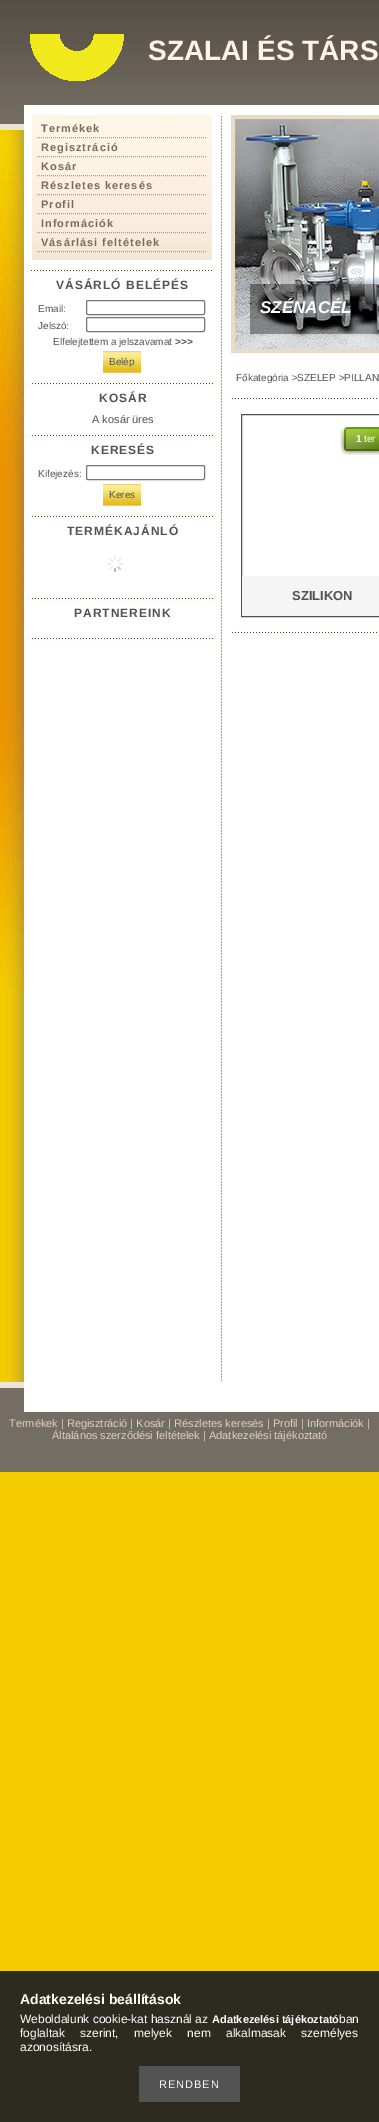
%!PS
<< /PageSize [379 2122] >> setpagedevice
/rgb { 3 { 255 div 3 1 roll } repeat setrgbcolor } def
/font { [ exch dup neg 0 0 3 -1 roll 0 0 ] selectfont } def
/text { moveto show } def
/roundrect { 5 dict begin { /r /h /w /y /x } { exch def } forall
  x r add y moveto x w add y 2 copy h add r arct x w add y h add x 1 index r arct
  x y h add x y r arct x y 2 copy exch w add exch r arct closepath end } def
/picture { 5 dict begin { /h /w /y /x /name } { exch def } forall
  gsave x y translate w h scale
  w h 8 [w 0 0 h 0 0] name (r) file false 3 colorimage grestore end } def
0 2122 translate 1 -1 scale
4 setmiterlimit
245 204 0 rgb
0 0 379 2122 rectfill
(img_01.rgb) 0 0 379 105 picture
(img_02.rgb) 30 34 94 47 picture
(img_03.rgb) 0 992 24 390 picture
(img_04.rgb) 0 105 24 887 picture
(img_05.rgb) 24 105 355 1277 picture
245 232 214 rgb
32 244 180 16 rectfill
(img_06.rgb) 32 105 190 139 picture
165 156 139 rgb
[1 1] 0 setdash
37 137.5 moveto 170 0 rlineto stroke
37 156.5 moveto 170 0 rlineto stroke
37 175.5 moveto 170 0 rlineto stroke
37 194.5 moveto 170 0 rlineto stroke
37 213.5 moveto 170 0 rlineto stroke
37 232.5 moveto 170 0 rlineto stroke
37 251.5 moveto 170 0 rlineto stroke
(img_07.rgb) 24 260 196 18 picture
118 118 118 rgb
[] 0 setdash
86.5 300.5 118 14 1.5 roundrect stroke
86.5 317.5 118 14 1.5 roundrect stroke
(img_08.rgb) 103 351 38 22 picture
(img_09.rgb) 25 381 196 5 picture
(img_10.rgb) 25 433 195 5 picture
86.5 465.5 118 14 1.5 roundrect stroke
(img_08.rgb) 103 484 38 22 picture
(img_10.rgb) 25 514 195 5 picture
(img_11.rgb) 107 556 16 16 picture
(img_09.rgb) 25 596 196 5 picture
(img_09.rgb) 25 636 196 5 picture
234 219 196 rgb
4 setlinewidth
233 117 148 234 rectstroke
(img_12.rgb) 235 119 144 230 picture
(img_13.rgb) 250 284 129 50 picture
(img_14.rgb) 231 397 148 3 picture
83 83 83 rgb
1 setlinewidth
241.5 414.5 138 202 rectstroke
(img_15.rgb) 340 427 39 28 picture
245 245 245 rgb
242 576 137 40 rectfill
(img_14.rgb) 231 631 148 3 picture
(img_16.rgb) 0 1382 24 30 picture
255 255 255 rgb
24 1382 355 30 rectfill
116 109 99 rgb
0 1412 379 60 rectfill
45 43 32 rgb
0 1971 379 151 rectfill
83 83 83 rgb
139 2066 101 36 rectfill
/LiberationSans-Bold 28 font
253 245 232 rgb
(SZALAI ÉS TÁRS) 148 60 text
/LiberationSans-Bold 11 font
120 109 91 rgb
41 132 moveto 1 0 (Termékek) ashow
41 151 moveto 1 0 (Regisztráció) ashow
41 170 moveto 1 0 (Kosár) ashow
41 189 moveto 1 0 (Részletes keresés) ashow
41 208 moveto 1 0 (Profil) ashow
41 227 moveto 1 0 (Információk) ashow
41 246 moveto 1 0 (Vásárlási feltételek) ashow
/LiberationSans-Bold 12 font
83 83 83 rgb
56 289 moveto 1 0 (VÁSÁRLÓ BELÉPÉS) ashow
/LiberationSans-Regular 10 font
(Email:) 38 312 text
(Jelszó:) 38 329 text
(Elfelejtettem a jelszavamat) 53 345 text
/LiberationSans-Bold 10 font
(>>>) 175 345 text
/LiberationSans-Regular 10 font
(Belép) 109 365 text
/LiberationSans-Bold 12 font
99 402 moveto 1 0 (KOSÁR) ashow
/LiberationSans-Regular 11 font
(A kosár üres) 92 423 text
/LiberationSans-Bold 12 font
91 454 moveto 1 0 (KERESÉS) ashow
/LiberationSans-Regular 10 font
(Kifejezés:) 38 477 text
(Keres) 109 498 text
/LiberationSans-Bold 12 font
67 535 moveto 1 0 (TERMÉKAJÁNLÓ) ashow
74 617 moveto 1 0 (PARTNEREINK) ashow
/LiberationSans-BoldItalic 17 font
255 255 255 rgb
(SZÉNACÉL) 260 313 text
/LiberationSans-Regular 10 font
83 83 83 rgb
(Főkategória >SZELEP >PILLAN) 236 381 text
/LiberationSans-Bold 10 font
255 255 255 rgb
(1) 356 442 text
/LiberationSans-Regular 10 font
(ter) 364 442 text
/LiberationSans-Bold 13 font
83 83 83 rgb
(SZILIKON) 292 600 text
/LiberationSans-Regular 11 font
221 210 188 rgb
(Termékek | Regisztráció | Kosár | Részletes keresés | Profil | Információk |) 9 1427 text
(Általános szerződési feltételek | Adatkezelési tájékoztató) 52 1439 text
/LiberationSans-Bold 14 font
255 255 255 rgb
(Adatkezelési beállítások) 20 2004 text
/LiberationSans-Regular 12 font
(Weboldalunk cookie-kat használ az) 20 2023 text
/LiberationSans-Bold 11 font
(Adatkezelési tájékoztató) 212 2023 text
/LiberationSans-Regular 12 font
(ban) 339 2023 text
20 2037 moveto 12 0 32 (foglaltak szerint, melyek nem alkalmasak személyes) widthshow
(azonosításra.) 20 2051 text
/LiberationSans-Regular 11 font
159 2088 moveto 1 0 (RENDBEN) ashow
showpage
